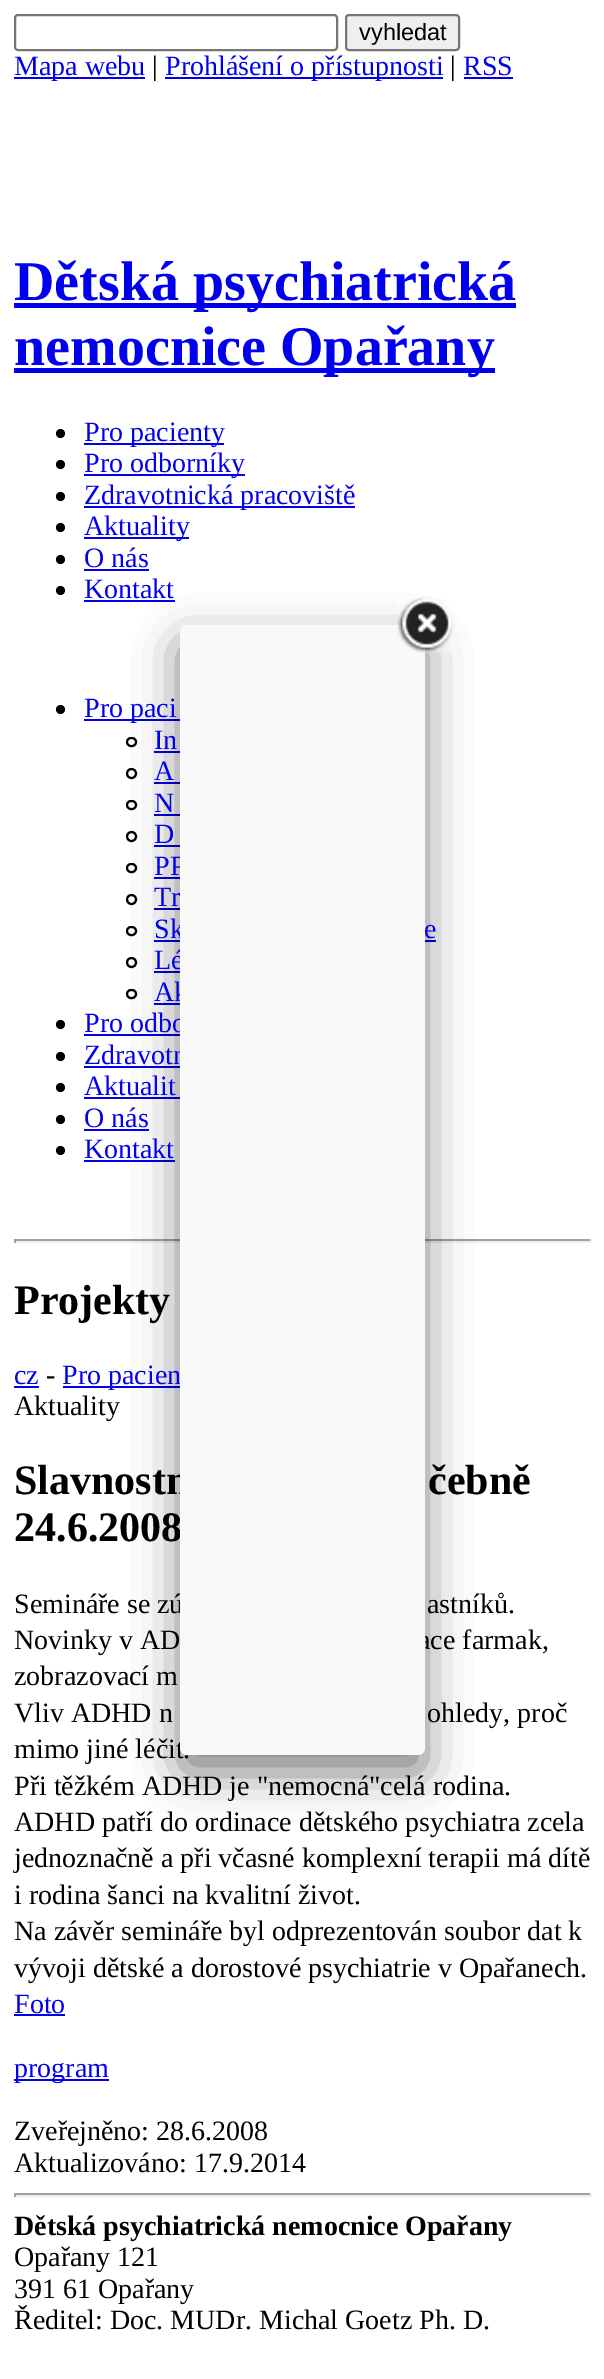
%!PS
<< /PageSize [604 2379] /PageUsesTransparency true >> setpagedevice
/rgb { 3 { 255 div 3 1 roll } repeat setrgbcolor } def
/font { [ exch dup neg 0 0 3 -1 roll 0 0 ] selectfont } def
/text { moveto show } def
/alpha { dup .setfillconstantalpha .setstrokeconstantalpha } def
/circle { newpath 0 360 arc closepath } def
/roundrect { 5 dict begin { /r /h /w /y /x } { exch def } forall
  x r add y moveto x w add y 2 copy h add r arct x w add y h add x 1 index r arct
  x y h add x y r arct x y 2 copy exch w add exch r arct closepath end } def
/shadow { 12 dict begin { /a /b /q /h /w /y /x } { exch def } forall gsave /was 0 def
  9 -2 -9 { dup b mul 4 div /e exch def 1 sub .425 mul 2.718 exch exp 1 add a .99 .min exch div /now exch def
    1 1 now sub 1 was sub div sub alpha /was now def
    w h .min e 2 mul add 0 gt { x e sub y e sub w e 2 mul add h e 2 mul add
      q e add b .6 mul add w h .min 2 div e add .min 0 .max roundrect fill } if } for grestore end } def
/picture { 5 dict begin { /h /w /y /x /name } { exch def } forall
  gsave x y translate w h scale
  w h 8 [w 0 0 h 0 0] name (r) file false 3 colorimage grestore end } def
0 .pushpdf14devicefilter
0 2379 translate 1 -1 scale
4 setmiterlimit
255 255 255 rgb
0 0 604 2379 rectfill
118 118 118 rgb
2 setlinewidth
15 15 322 35 3 roundrect stroke
239 239 239 rgb
346 15 113 35 3 roundrect gsave fill grestore
118 118 118 rgb
stroke
0 0 238 rgb
14 77 131 2 rectfill
165 77 278 2 rectfill
464 77 49 2 rectfill
14 303 502 5 rectfill
14 368 481 5 rectfill
0 0 0 rgb
60.5 433.5 4.5 circle fill
0 0 238 rgb
84 443 140 2 rectfill
0 0 0 rgb
60.5 464.5 4.5 circle fill
0 0 238 rgb
84 474 161 2 rectfill
0 0 0 rgb
60.5 496.5 4.5 circle fill
0 0 238 rgb
84 506 271 2 rectfill
0 0 0 rgb
60.5 527.5 4.5 circle fill
0 0 238 rgb
84 537 105 2 rectfill
0 0 0 rgb
60.5 559.5 4.5 circle fill
0 0 238 rgb
84 569 65 2 rectfill
0 0 0 rgb
60.5 590.5 4.5 circle fill
0 0 238 rgb
84 600 91 2 rectfill
0 0 0 rgb
60.5 709.5 4.5 circle fill
0 0 238 rgb
84 719 96 2 rectfill
0 0 0 rgb
127 738 9 8 4 roundrect stroke
0 0 238 rgb
154 751 26 2 rectfill
0 0 0 rgb
131.5 773.5 4.5 circle stroke
0 0 238 rgb
154 782 26 2 rectfill
0 0 0 rgb
127 801 9 8 4 roundrect stroke
0 0 238 rgb
154 814 26 2 rectfill
0 0 0 rgb
131.5 836.5 4.5 circle stroke
0 0 238 rgb
154 845 26 2 rectfill
0 0 0 rgb
127 864 9 8 4 roundrect stroke
0 0 238 rgb
154 877 26 2 rectfill
0 0 0 rgb
131.5 899.5 4.5 circle stroke
0 0 238 rgb
154 908 26 2 rectfill
0 0 0 rgb
127 927 9 8 4 roundrect stroke
0 0 238 rgb
154 940 282 2 rectfill
0 0 0 rgb
131.5 962.5 4.5 circle stroke
0 0 238 rgb
154 971 26 2 rectfill
0 0 0 rgb
127 990 9 8 4 roundrect stroke
0 0 238 rgb
154 1003 26 2 rectfill
0 0 0 rgb
60.5 1024.5 4.5 circle fill
0 0 238 rgb
84 1034 96 2 rectfill
0 0 0 rgb
60.5 1056.5 4.5 circle fill
0 0 238 rgb
84 1066 96 2 rectfill
0 0 0 rgb
60.5 1087.5 4.5 circle fill
0 0 238 rgb
84 1097 96 2 rectfill
0 0 0 rgb
60.5 1119.5 4.5 circle fill
0 0 238 rgb
84 1129 65 2 rectfill
0 0 0 rgb
60.5 1150.5 4.5 circle fill
0 0 238 rgb
84 1160 91 2 rectfill
159 159 159 rgb
14 1239 578 2 rectfill
238 238 238 rgb
590 1239 2 4 rectfill
14 1241 578 2 rectfill
159 159 159 rgb
14 1239 2 4 rectfill
0 0 238 rgb
14 1386 25 2 rectfill
63 1386 117 2 rectfill
14 2014 51 2 rectfill
14 2079 95 2 rectfill
159 159 159 rgb
14 2193 578 2 rectfill
238 238 238 rgb
590 2193 2 4 rectfill
14 2195 578 2 rectfill
159 159 159 rgb
14 2193 2 4 rectfill
0 0 0 rgb
180 642 245 1131 7 22 0.5 shadow
/LiberationSans-Regular 23.5 font
(vyhledat) 359 40 text
/LiberationSerif-Regular 28 font
0 0 238 rgb
(Mapa webu) 14 75 text
0 0 0 rgb
(|) 152 75 text
0 0 238 rgb
(Prohlášení o přístupnosti) 165 75 text
0 0 0 rgb
(|) 450 75 text
0 0 238 rgb
(RSS) 463 75 text
/LiberationSerif-Bold 56 font
(Dětská psychiatrická) 14 300 text
(nemocnice Opařany) 14 365 text
/LiberationSerif-Regular 28 font
(Pro pacienty) 84 441 text
(Pro odborníky) 84 472 text
(Zdravotnická pracoviště) 84 504 text
(Aktuality) 84 535 text
(O nás) 84 567 text
(Kontakt) 84 598 text
(Pro paci) 84 717 text
(In) 154 749 text
(A) 154 780 text
(N) 154 812 text
(D) 154 843 text
(PP) 154 875 text
(Tr) 154 906 text
(Sk) 154 938 text
(e) 424 938 text
(Lé) 154 969 text
(Ak) 154 1001 text
(Pro odbo) 84 1032 text
(Zdravotn) 84 1064 text
(Aktualit) 84 1095 text
(O nás) 84 1127 text
(Kontakt) 84 1158 text
/LiberationSerif-Bold 42 font
0 0 0 rgb
(Projekty) 14 1314 text
/LiberationSerif-Regular 28 font
0 0 238 rgb
(cz) 14 1384 text
0 0 0 rgb
(-) 46 1384 text
0 0 238 rgb
(Pro pacien) 62 1384 text
0 0 0 rgb
(Aktuality) 14 1415 text
/LiberationSerif-Bold 42 font
(Slavnostn) 14 1494 text
(čebně) 428 1494 text
(24.6.2008) 14 1541 text
/LiberationSerif-Regular 28 font
(Semináře se zú) 14 1613 text
(astníků.) 427 1613 text
(Novinky v AD) 14 1649 text
(ace farmak,) 418 1649 text
(zobrazovací m) 14 1685 text
(Vliv ADHD n) 14 1722 text
(ohledy, proč) 427 1722 text
(mimo jiné léčit.) 14 1758 text
(Při těžkém ADHD je "nemocná"celá rodina.) 14 1795 text
(ADHD patří do ordinace dětského psychiatra zcela) 14 1831 text
(jednoznačně a při včasné komplexní terapii má dítě) 14 1867 text
(i rodina šanci na kvalitní život.) 14 1904 text
(Na závěr semináře byl odprezentován soubor dat k) 14 1940 text
(vývoji dětské a dorostové psychiatrie v Opařanech.) 14 1977 text
0 0 238 rgb
(Foto) 14 2013 text
(program) 14 2077 text
0 0 0 rgb
(Zveřejněno: 28.6.2008) 14 2140 text
(Aktualizováno: 17.9.2014) 14 2172 text
/LiberationSerif-Bold 28 font
(Dětská psychiatrická nemocnice Opařany) 14 2235 text
/LiberationSerif-Regular 28 font
(Opařany 121) 14 2266 text
(391 61 Opařany) 14 2298 text
(Ředitel: Doc. MUDr. Michal Goetz Ph. D.) 14 2329 text
249 249 249 rgb
180 625 245 1130 7 roundrect fill
(img_01.rgb) 397 596 57 57 picture
.poppdf14devicefilter showpage
